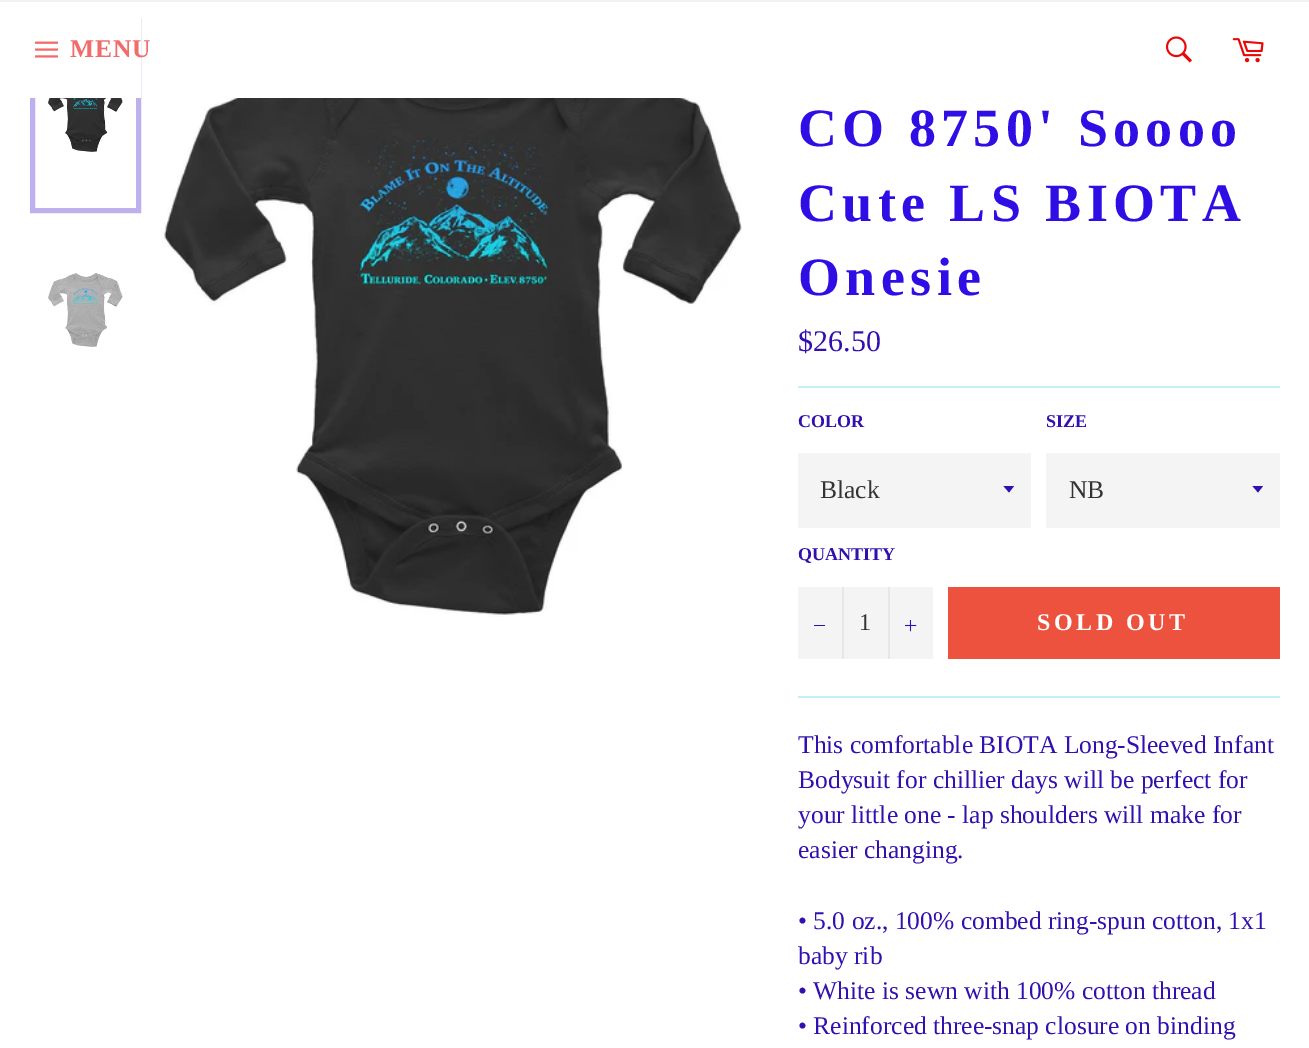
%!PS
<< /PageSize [1309 1048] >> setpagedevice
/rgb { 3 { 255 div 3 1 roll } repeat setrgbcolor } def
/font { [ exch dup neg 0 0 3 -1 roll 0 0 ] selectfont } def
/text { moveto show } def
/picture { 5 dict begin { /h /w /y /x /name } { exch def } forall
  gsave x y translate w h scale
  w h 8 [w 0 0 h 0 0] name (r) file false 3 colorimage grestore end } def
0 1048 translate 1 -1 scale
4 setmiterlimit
255 255 255 rgb
0 0 1309 1048 rectfill
(img_04.rgb) 48 98 75 54 picture
189 176 237 rgb
5 setlinewidth
32.5 20.5 106 190 rectstroke
255 255 255 rgb
30 18 111 80 rectfill
242 242 242 rgb
0 0 1309 2 rectfill
(img_01.rgb) 35 41 23 17 picture
(img_02.rgb) 1165 36 27 27 picture
(img_03.rgb) 1232 38 32 25 picture
(img_05.rgb) 48 273 75 74 picture
(img_06.rgb) 162 98 580 519 picture
198 238 250 rgb
798 386 482 2 rectfill
244 244 244 rgb
798 453 233 75 rectfill
50 16 176 rgb
1003.5 486 moveto 5.5 6.5 rlineto 5 -6.5 rlineto closepath fill
244 244 244 rgb
1046 453 234 75 rectfill
50 16 176 rgb
1252.5 486 moveto 5.5 6.5 rlineto 5 -6.5 rlineto closepath fill
244 244 244 rgb
798 587 135 72 rectfill
231 231 231 rgb
842 587 2 72 rectfill
50 16 176 rgb
814 625 11 1 rectfill
231 231 231 rgb
888 587 2 72 rectfill
(img_07.rgb) 905 620 12 12 picture
236 82 62 rgb
948 587 332 72 rectfill
198 238 250 rgb
798 696 482 2 rectfill
/LiberationSerif-Bold 25.5 font
242 107 107 rgb
70 57 moveto 1 0 (MENU) ashow
/LiberationSerif-Bold 54 font
46 14 229 rgb
798 146 moveto 5.4 0 (CO 8750' Soooo) ashow
798 221 moveto 5.4 0 (Cute LS BIOTA) ashow
798 295 moveto 5.4 0 (Onesie) ashow
/LiberationSerif-Regular 30 font
50 16 176 rgb
($26.50) 798 351 text
/LiberationSerif-Bold 18 font
(COLOR) 798 427 text
/LiberationSerif-Regular 25.5 font
51 51 51 rgb
(Black) 820 498 text
/LiberationSerif-Bold 18 font
50 16 176 rgb
(SIZE) 1046 427 text
/LiberationSerif-Regular 25.5 font
51 51 51 rgb
(NB) 1069 498 text
/LiberationSerif-Bold 18 font
50 16 176 rgb
(QUANTITY) 798 560 text
/LiberationSerif-Regular 24 font
51 51 51 rgb
(1) 859 630 text
/LiberationSerif-Bold 24 font
255 255 255 rgb
1037 630 moveto 3.5 0 (SOLD OUT) ashow
/LiberationSerif-Regular 25.5 font
50 16 176 rgb
(This comfortable BIOTA Long-Sleeved Infant) 798 753 text
(Bodysuit for chillier days will be perfect for) 798 788 text
(your little one - lap shoulders will make for) 798 823 text
(easier changing.) 798 858 text
(• 5.0 oz., 100% combed ring-spun cotton, 1x1) 798 929 text
(baby rib) 798 964 text
(• White is sewn with 100% cotton thread) 798 999 text
(• Reinforced three-snap closure on binding) 798 1034 text
showpage
